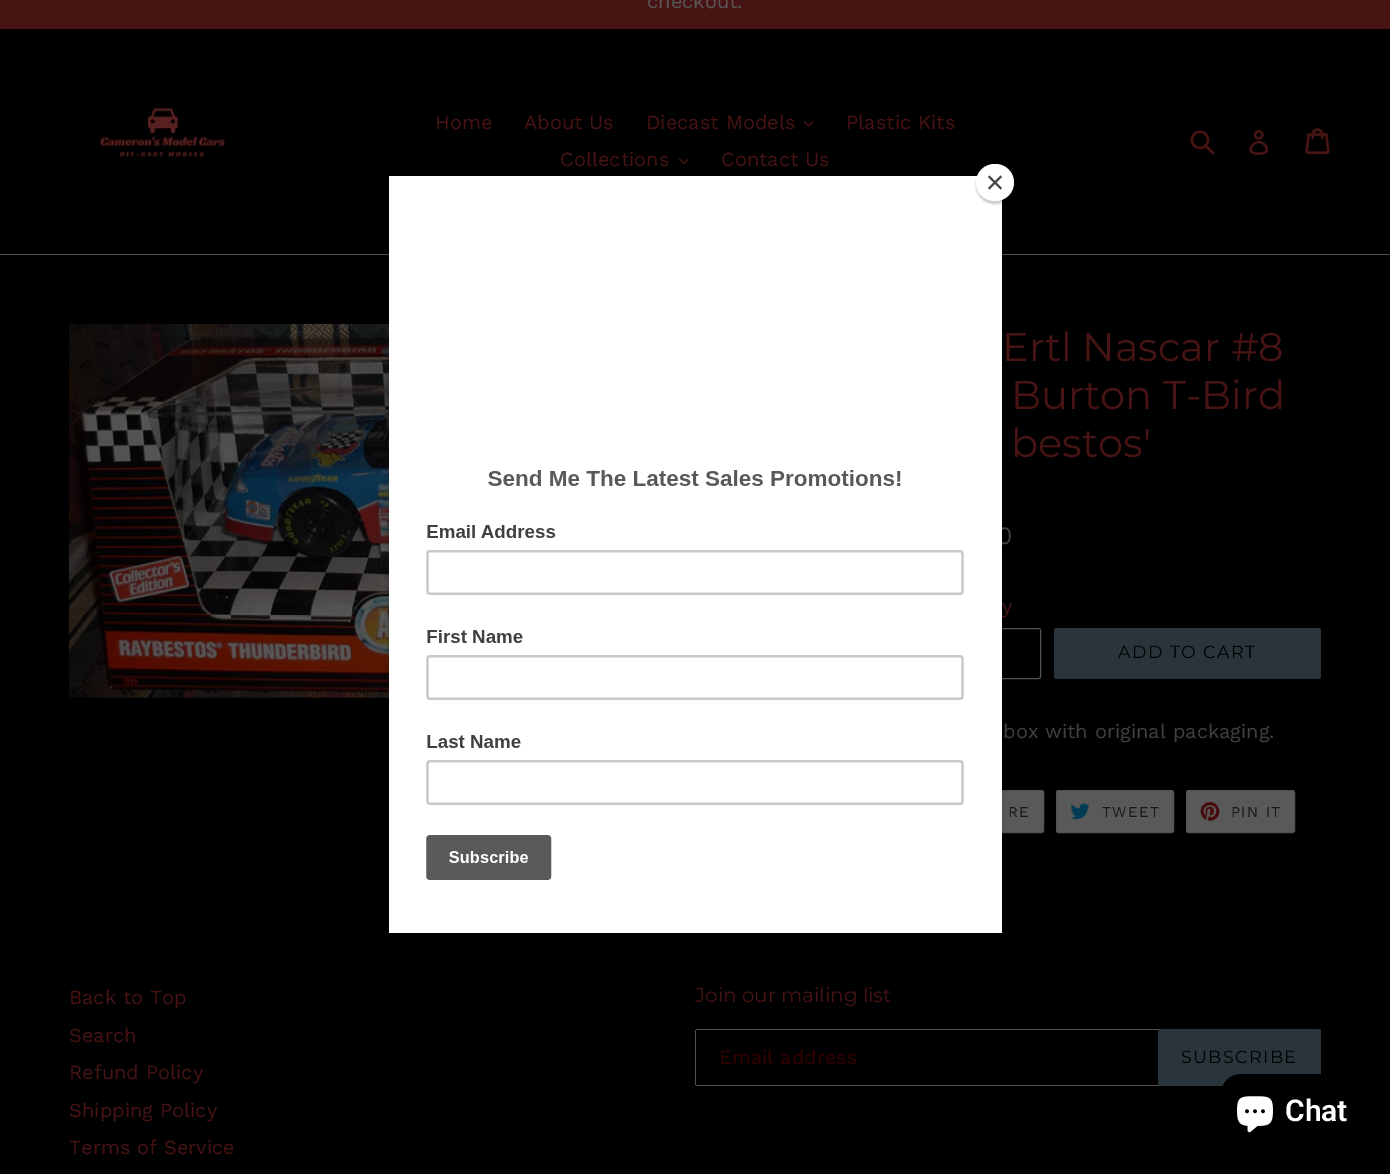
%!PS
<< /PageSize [1390 1174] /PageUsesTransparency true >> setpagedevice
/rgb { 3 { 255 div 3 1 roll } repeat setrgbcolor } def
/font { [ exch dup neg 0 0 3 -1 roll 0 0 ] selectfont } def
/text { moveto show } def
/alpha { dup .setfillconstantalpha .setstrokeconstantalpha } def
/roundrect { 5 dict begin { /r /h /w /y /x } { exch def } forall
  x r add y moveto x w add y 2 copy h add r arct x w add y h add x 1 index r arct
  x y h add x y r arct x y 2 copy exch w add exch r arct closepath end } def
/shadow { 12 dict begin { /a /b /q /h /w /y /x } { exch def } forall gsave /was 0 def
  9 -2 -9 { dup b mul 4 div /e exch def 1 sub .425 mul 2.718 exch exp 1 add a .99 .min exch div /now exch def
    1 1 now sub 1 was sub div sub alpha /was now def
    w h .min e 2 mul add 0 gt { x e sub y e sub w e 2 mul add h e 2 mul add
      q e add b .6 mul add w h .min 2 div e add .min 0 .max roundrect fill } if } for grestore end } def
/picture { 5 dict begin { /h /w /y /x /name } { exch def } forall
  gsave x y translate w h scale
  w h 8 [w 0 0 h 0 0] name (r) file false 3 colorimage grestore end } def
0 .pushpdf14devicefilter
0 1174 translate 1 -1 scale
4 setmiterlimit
0 0 0 rgb
0 0 1390 1174 rectfill
71 19 19 rgb
0 0 1390 29 rectfill
81 82 82 rgb
0 254 1390 1 rectfill
(img_01.rgb) 94 106 132 54 picture
(img_02.rgb) 804 120 10 7 picture
(img_03.rgb) 679 158 10 7 picture
(img_04.rgb) 1190 130 25 25 picture
(img_05.rgb) 1249 130 20 25 picture
(img_06.rgb) 1305 128 25 27 picture
(img_08.rgb) 69 324 320 374 picture
929.5 628.5 111 50 2 roundrect stroke
89 89 89 rgb
929.5 790.5 114 42 2 roundrect gsave fill grestore
81 82 82 rgb
stroke
0 0 0 rgb
389 179 612 756 0 2.5 0.2 shadow
42 53 59 rgb
1054 628 267 51 2.5 roundrect fill
89 89 89 rgb
1056.5 790.5 117 42 2 roundrect gsave fill grestore
81 82 82 rgb
stroke
(img_09.rgb) 1070 803 20 17 picture
89 89 89 rgb
1186.5 790.5 108 42 2 roundrect gsave fill grestore
81 82 82 rgb
stroke
(img_10.rgb) 1200 802 20 19 picture
696 1029 462 1 rectfill
696 1085 462 1 rectfill
695 1030 1 55 rectfill
42 53 59 rgb
1158 1029 moveto 160.5 0 rlineto 1.5 0 2.5 1 2.5 2.5 rcurveto 0 52 rlineto 0 1.5 -1 2.5 -2.5 2.5 rcurveto -160.5 0 rlineto closepath fill
0 0 0 rgb
1221 1074 142 75 20 roundrect fill
(img_11.rgb) 1237 1096 36 37 picture
/WorkSans-Regular 20 font
89 89 89 rgb
(checkout.) 647 8 text
71 19 19 rgb
(Home) 435 129 text
(About Us) 524 129 text
(Diecast Models) 646 129 text
(Plastic Kits) 846 129 text
(Collections) 560 166 text
(Contact Us) 721 166 text
/Montserrat-Thin 40 font
(Ertl Nascar #8) 1002 361 text
(Burton T-Bird) 1011 409 text
(bestos') 1011 457 text
/WorkSans-Regular 25 font
64 64 64 rgb
(0) 997 544 text
/WorkSans-Regular 20 font
71 19 19 rgb
(y) 1002 613 text
(img_07.rgb) 389 176 613 757 picture
0 0 0 rgb
976 166 38 38 19 1 0.2 shadow
255 255 255 rgb
976 164 38 37 18.5 roundrect fill
65 65 65 rgb
1000.5 175.5 moveto 1.5 1.5 rlineto -12.5 12.5 rlineto -1.5 -1.5 rlineto closepath fill
988 177 moveto 1.5 -1.5 rlineto 12.5 12.5 rlineto -1.5 1.5 rlineto closepath fill
/Montserrat-Thin 17.5 font
0 0 0 rgb
1118 658 moveto 1.4 0 (ADD TO CART) ashow
/WorkSans-Regular 20 font
64 64 64 rgb
(box with original packaging.) 1003 738 text
/WorkSans-Regular 15 font
21 23 25 rgb
1008 817 moveto 1.25 0 (RE) ashow
1102 817 moveto 1.25 0 (TWEET) ashow
1231 817 moveto 1.25 0 (PIN IT) ashow
/WorkSans-Regular 20 font
71 19 19 rgb
(Back to Top) 69 1004 text
(Search) 69 1042 text
(Refund Policy) 69 1079 text
(Shipping Policy) 69 1117 text
(Terms of Service) 69 1154 text
/Montserrat-Thin 20 font
(Join our mailing list) 695 1002 text
/WorkSans-Regular 20 font
51 0 0 rgb
(Email address) 719 1064 text
/Montserrat-Thin 17.5 font
0 0 0 rgb
1181 1063 moveto 1.4 0 (SUBSCRIBE) ashow
/Roboto-SemiBold 30 font
255 255 255 rgb
(Chat) 1285 1121 text
.poppdf14devicefilter showpage
